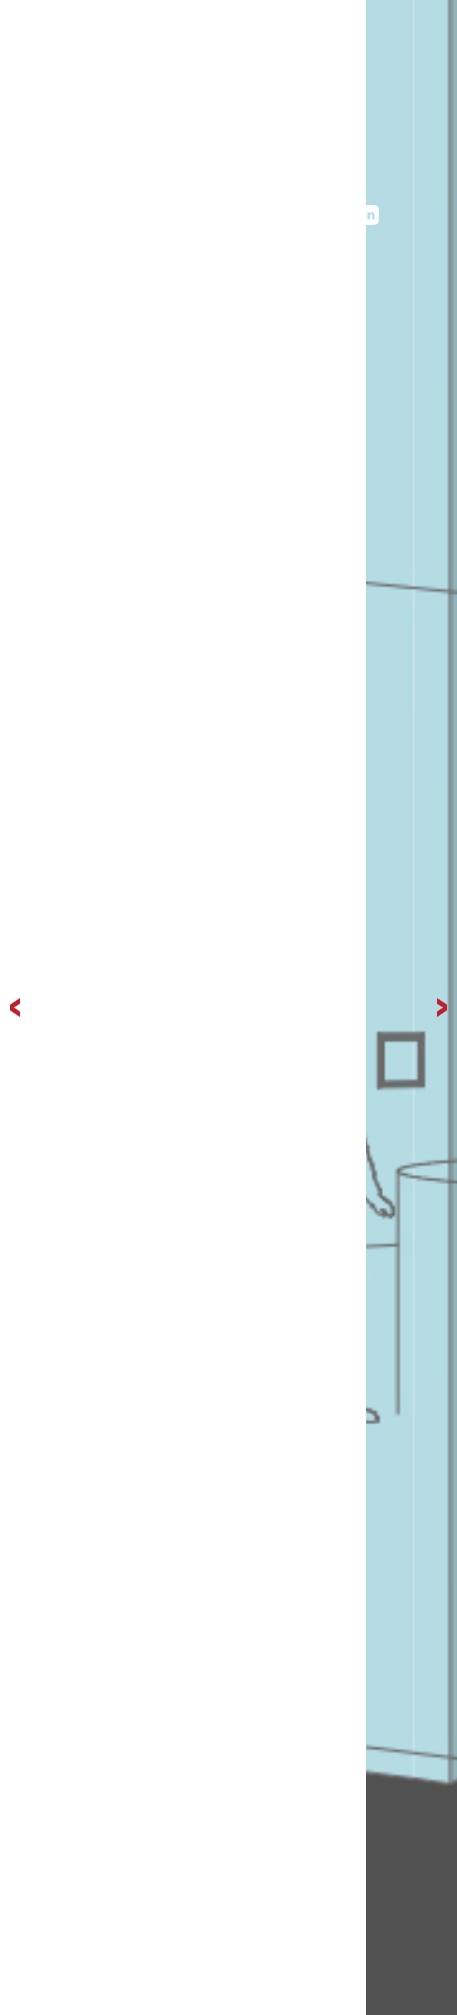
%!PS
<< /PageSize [457 2015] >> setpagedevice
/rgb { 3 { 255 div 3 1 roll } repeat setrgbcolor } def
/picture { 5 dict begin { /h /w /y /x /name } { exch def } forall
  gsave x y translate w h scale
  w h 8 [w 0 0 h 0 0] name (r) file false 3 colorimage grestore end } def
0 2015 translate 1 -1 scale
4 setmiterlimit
255 255 255 rgb
0 0 457 2015 rectfill
(img_01.rgb) 10 998 10 19 picture
(img_02.rgb) 366 0 91 2015 picture
(img_03.rgb) 437 998 10 19 picture
(img_04.rgb) 366 205 13 20 picture
showpage
